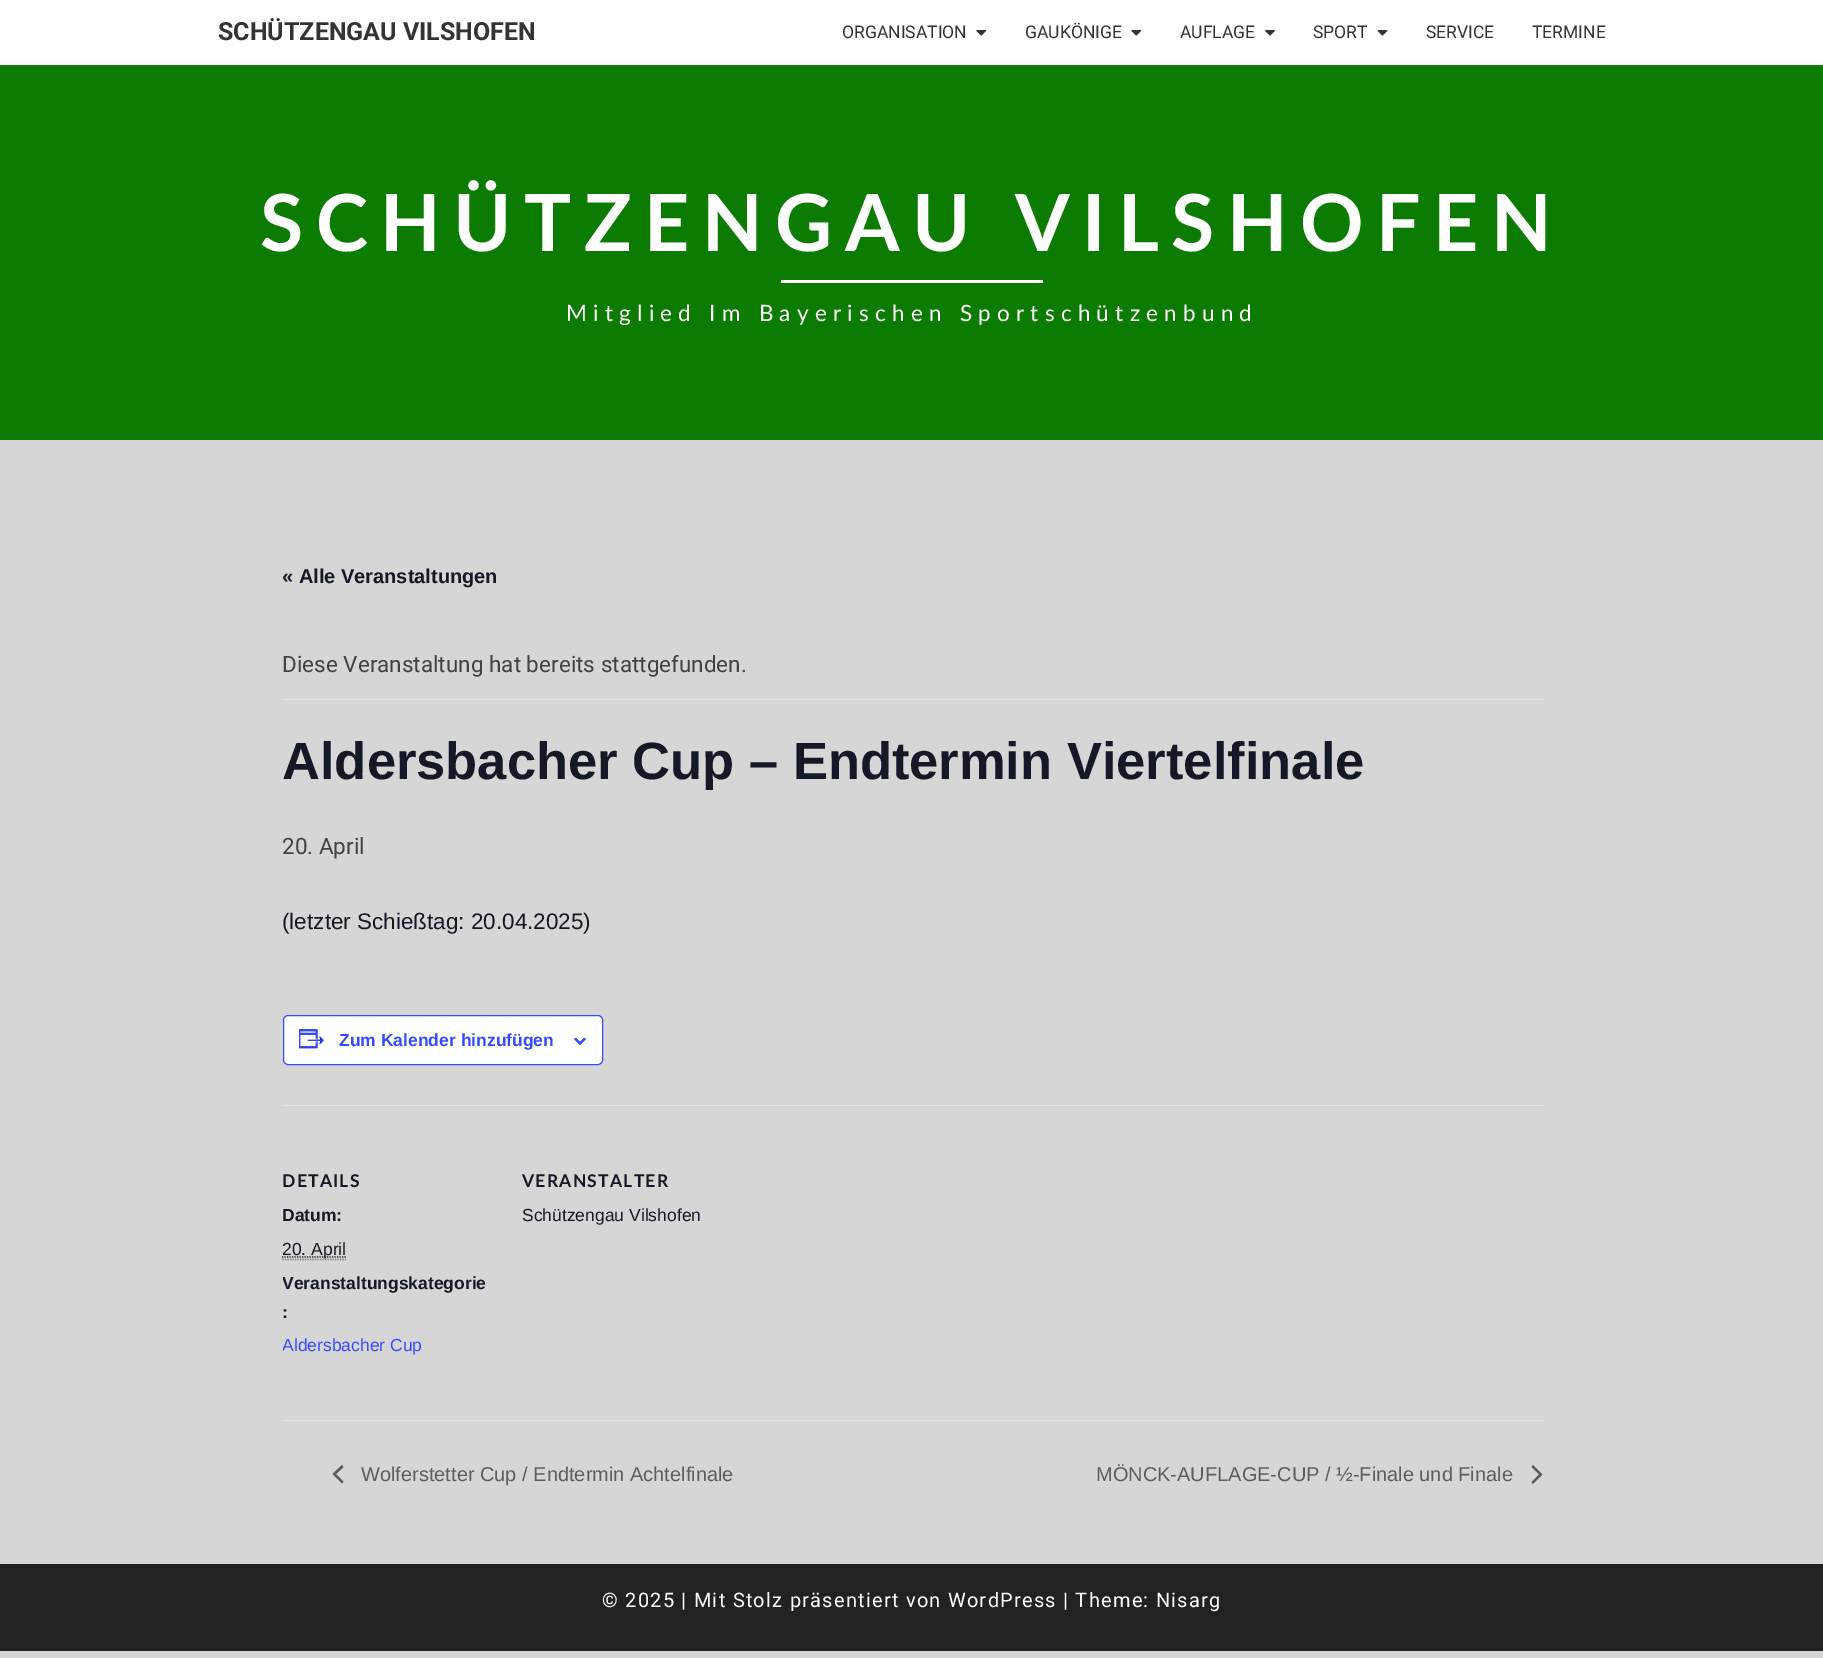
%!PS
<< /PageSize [1823 1658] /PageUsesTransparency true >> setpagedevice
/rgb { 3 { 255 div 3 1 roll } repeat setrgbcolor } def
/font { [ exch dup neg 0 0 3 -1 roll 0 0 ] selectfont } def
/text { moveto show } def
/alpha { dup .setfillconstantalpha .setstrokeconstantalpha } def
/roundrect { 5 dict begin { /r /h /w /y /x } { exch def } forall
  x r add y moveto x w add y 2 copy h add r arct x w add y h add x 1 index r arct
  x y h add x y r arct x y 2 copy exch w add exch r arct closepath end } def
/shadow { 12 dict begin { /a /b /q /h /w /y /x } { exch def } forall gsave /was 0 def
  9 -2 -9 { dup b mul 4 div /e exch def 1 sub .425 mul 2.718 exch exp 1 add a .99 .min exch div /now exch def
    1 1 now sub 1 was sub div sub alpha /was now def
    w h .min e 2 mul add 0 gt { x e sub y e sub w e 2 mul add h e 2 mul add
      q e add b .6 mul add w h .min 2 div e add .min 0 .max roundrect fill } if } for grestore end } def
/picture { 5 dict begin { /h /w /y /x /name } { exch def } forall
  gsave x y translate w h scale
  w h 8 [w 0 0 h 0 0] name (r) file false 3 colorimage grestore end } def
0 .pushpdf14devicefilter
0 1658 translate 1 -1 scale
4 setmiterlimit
214 214 214 rgb
0 0 1823 1658 rectfill
11 124 1 rgb
0 65 1823 375 rectfill
100 100 100 rgb
0 1 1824 65 0 0.5 0.2 shadow
255 255 255 rgb
0 0 1823 65 rectfill
(img_01.rgb) 976 30 11 6 picture
(img_01.rgb) 1131 30 11 6 picture
(img_02.rgb) 1265 30 10 6 picture
(img_03.rgb) 1377 30 11 6 picture
781 280 262 3 rectfill
228 228 228 rgb
283 699 1260 1 rectfill
255 255 255 rgb
283.5 1015.5 319 49 4.5 roundrect gsave fill grestore
51 74 255 rgb
stroke
(img_04.rgb) 299 1029 25 20 picture
(img_05.rgb) 574 1038 12 7 picture
228 228 228 rgb
283 1105 1260 1 rectfill
119 119 119 rgb
1.2 setlinewidth
[1.25 1.25] 0 setdash
282.5 1259.5 moveto 63.5 0 rlineto stroke
20 24 39 rgb
282 1257 moveto 64 0 rlineto stroke
228 228 228 rgb
283 1420 1260 1 rectfill
93 93 93 rgb
343.5 1481.5 moveto -1.5 2 rlineto -9.5 -9.5 rlineto 9.5 -9 rlineto 1.5 2 rlineto -7.5 7 rlineto closepath fill
1531.5 1467 moveto 1.5 -2 rlineto 9.5 9.5 rlineto -9.5 9.5 rlineto -1.5 -2 rlineto 7.5 -7.5 rlineto closepath fill
34 34 34 rgb
0 1564 1823 87 rectfill
/Roboto-Bold 25 font
51 51 51 rgb
(SCHÜTZENGAU VILSHOFEN) 218 40 text
/Roboto-Regular 17.5 font
(ORGANISATION) 842 38 text
(GAUKÖNIGE) 1025 38 text
(AUFLAGE) 1180 38 text
(SPORT) 1313 38 text
(SERVICE) 1426 38 text
(TERMINE) 1532 38 text
/Lato-Bold 78.75 font
255 255 255 rgb
260 251 moveto 12.5 0 (SCHÜTZENGAU VILSHOFEN) ashow
/Lato-Regular 22.5 font
566 321 moveto 6.25 0 (Mitglied Im Bayerischen Sportschützenbund) ashow
/LiberationSans-Bold 20 font
20 24 39 rgb
(« Alle Veranstaltungen) 282 583 text
/Roboto-Regular 22.5 font
66 66 66 rgb
(Diese Veranstaltung hat bereits stattgefunden.) 282 672 text
/LiberationSans-Bold 52.5 font
20 24 39 rgb
(Aldersbacher Cup – Endtermin Viertelfinale) 282 779 text
/Roboto-Regular 22.5 font
66 66 66 rgb
(20. April) 282 854 text
/LiberationSans-Regular 22.5 font
20 24 39 rgb
(\(letzter Schießtag: 20.04.2025\)) 282 929 text
/LiberationSans-Bold 17.5 font
51 74 255 rgb
(Zum Kalender hinzufügen) 339 1046 text
/Lato-Bold 17.5 font
20 24 39 rgb
282 1187 moveto 1.25 0 (DETAILS) ashow
/LiberationSans-Bold 17.5 font
(Datum:) 282 1221 text
/LiberationSans-Regular 17.5 font
(20. April) 282 1255 text
gsave
283 906 1260 480 rectclip
/LiberationSans-Bold 17.5 font
(Veranstaltungskategorie) 282 1289 text
grestore
/LiberationSans-Bold 17.5 font
(:) 282 1318 text
gsave
283 906 1260 480 rectclip
/LiberationSans-Regular 17.5 font
51 74 255 rgb
(Aldersbacher Cup) 282 1351 text
grestore
/Lato-Bold 17.5 font
522 1187 moveto 1.25 0 (VERANSTALTER) ashow
/LiberationSans-Regular 17.5 font
(Schützengau Vilshofen) 522 1221 text
/LiberationSans-Regular 20 font
93 93 93 rgb
(Wolferstetter Cup / Endtermin Achtelfinale) 361 1481 text
(MÖNCK-AUFLAGE-CUP / ½-Finale und Finale) 1096 1481 text
/Roboto-Regular 20 font
255 255 255 rgb
602 1607 moveto 1.25 0 (© 2025 | Mit Stolz präsentiert von WordPress | Theme: Nisarg) ashow
.poppdf14devicefilter showpage
